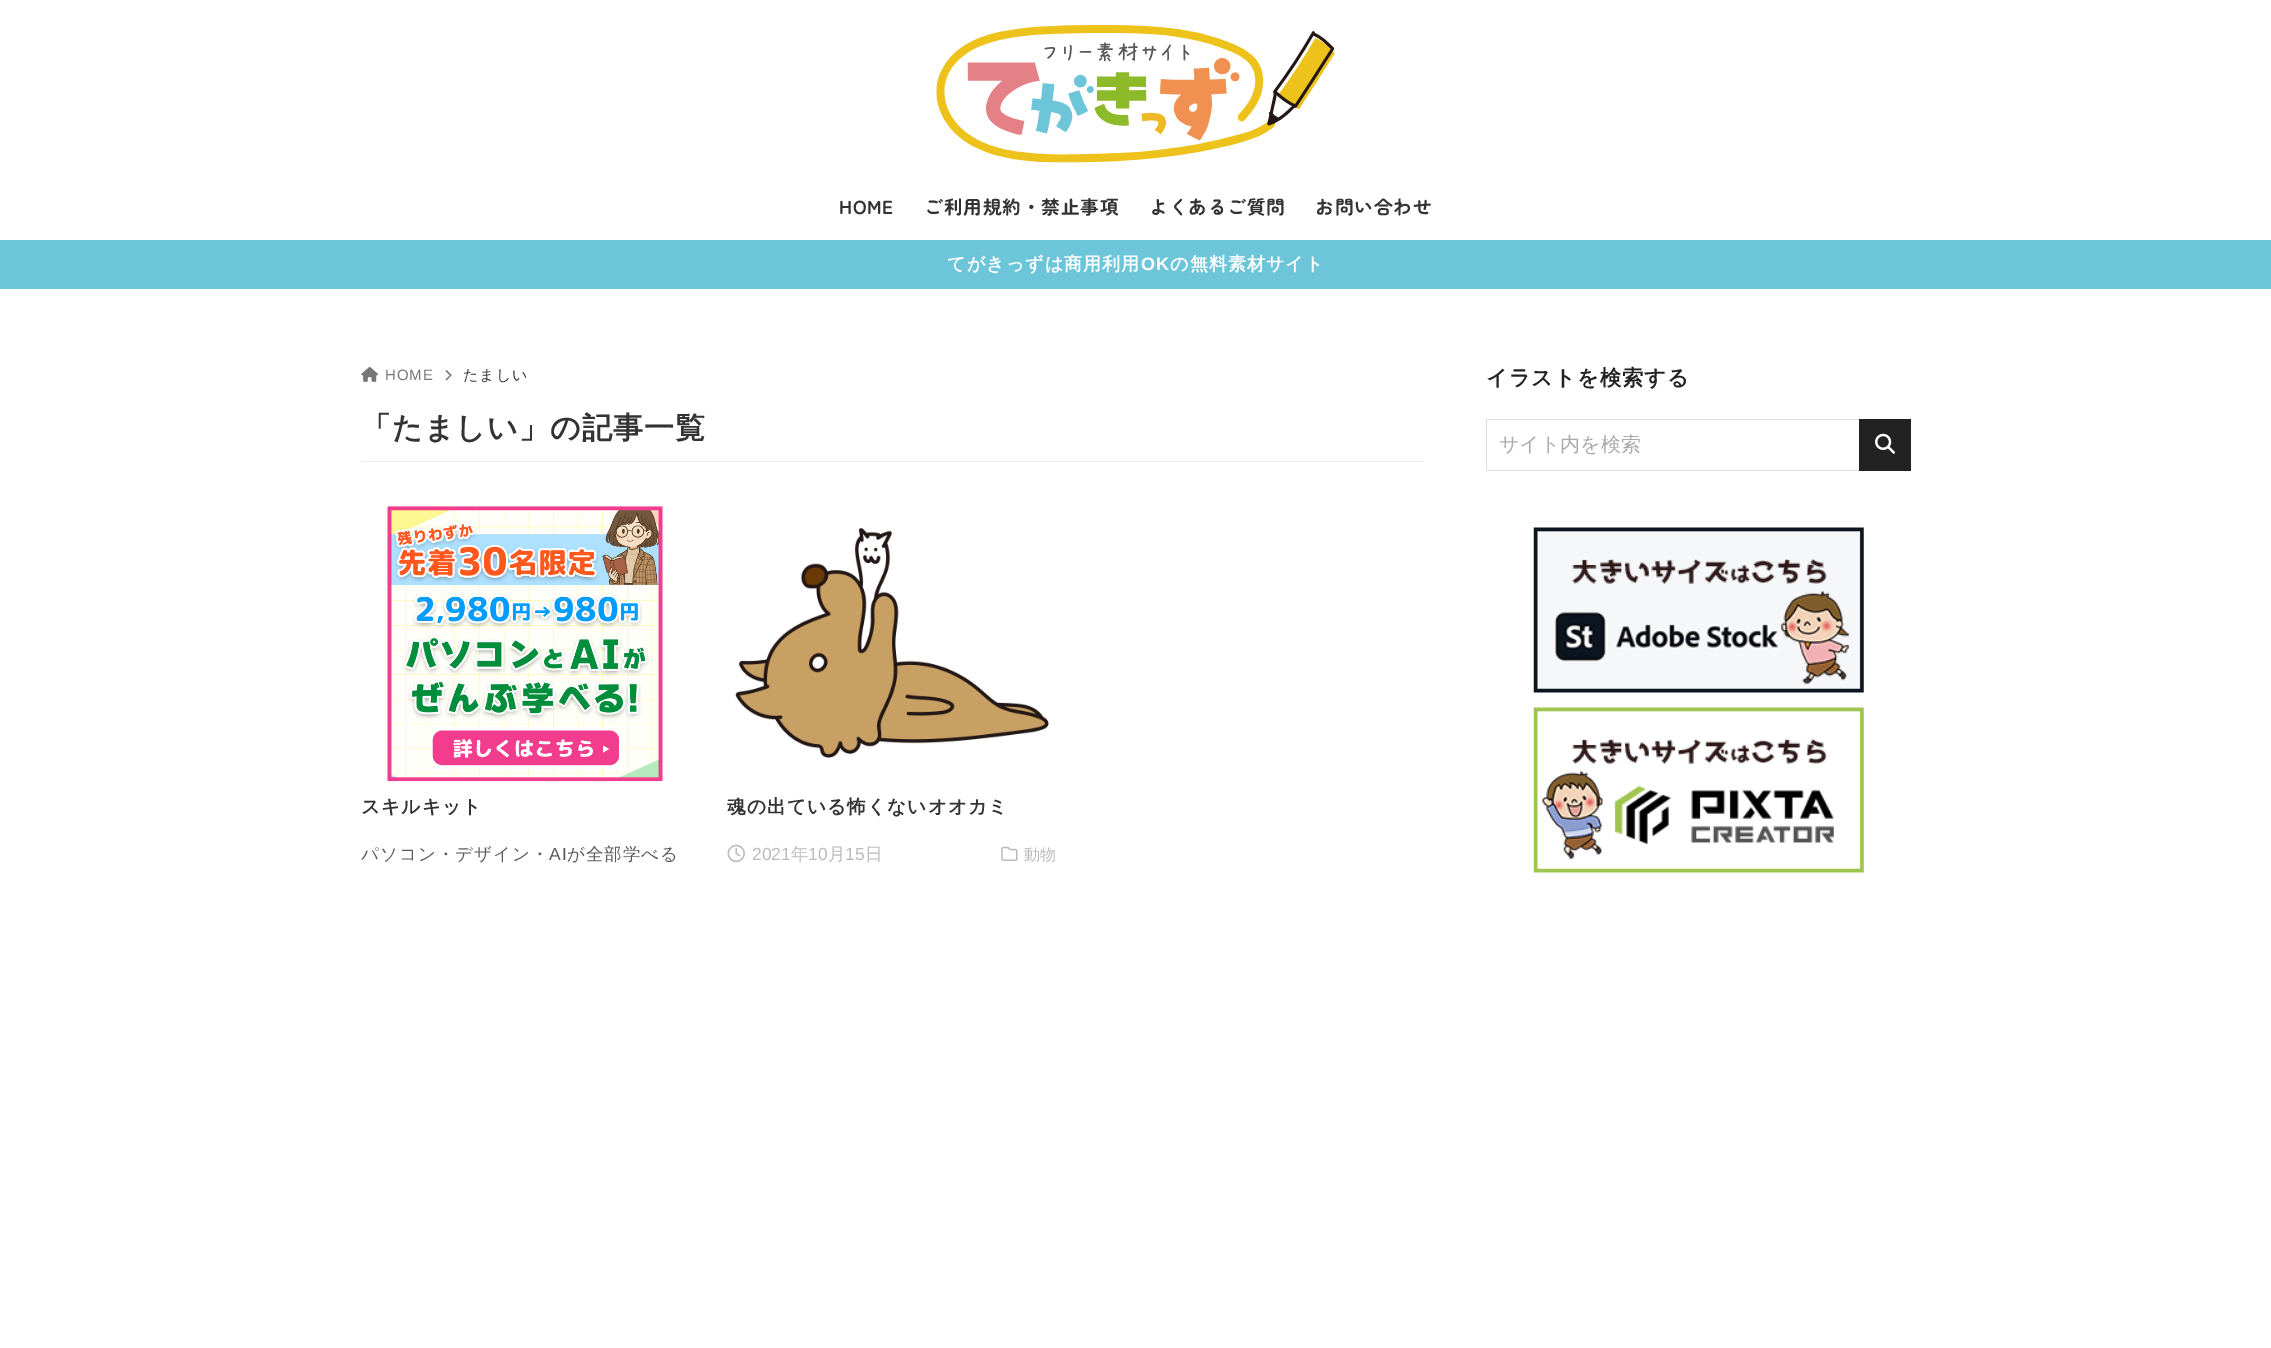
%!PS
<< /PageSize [2271 1348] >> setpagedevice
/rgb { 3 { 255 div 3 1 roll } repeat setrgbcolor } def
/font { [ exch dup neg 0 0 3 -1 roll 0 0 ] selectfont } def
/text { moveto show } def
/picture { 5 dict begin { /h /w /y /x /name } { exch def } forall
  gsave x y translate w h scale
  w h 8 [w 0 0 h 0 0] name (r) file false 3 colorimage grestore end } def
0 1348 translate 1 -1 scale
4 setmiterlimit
255 255 255 rgb
0 0 2271 1348 rectfill
(img_01.rgb) 936 25 399 138 picture
108 197 217 rgb
0 240 2271 49 rectfill
(img_02.rgb) 361 366 18 16 picture
119 119 119 rgb
446.5 370 moveto 5 5 rlineto -1 1 rlineto -5 -5 rlineto closepath fill
450.5 374.5 moveto 1 0.5 rlineto -5 5.5 rlineto -1 -1 rlineto closepath fill
238 238 238 rgb
361 461 1063 1 rectfill
(img_03.rgb) 387 506 276 276 picture
(img_04.rgb) 735 528 314 230 picture
(img_05.rgb) 727 844 18 19 picture
(img_06.rgb) 1001 846 17 15 picture
221 221 221 rgb
1486 419 373 1 rectfill
1486 470 373 1 rectfill
1486 419 1 52 rectfill
34 34 34 rgb
1859 419 52 52 rectfill
(img_07.rgb) 1875 433 20 21 picture
(img_08.rgb) 1533 527 331 166 picture
(img_09.rgb) 1533 707 331 166 picture
/ZenMaruGothic-Bold 18.75 font
51 51 51 rgb
839 214 moveto 0.75 0 (HOME) ashow
924 214 moveto 0.75 0 (ご利用規約・禁止事項) ashow
1149 214 moveto 0.75 0 (よくあるご質問) ashow
1315 214 moveto 0.75 0 (お問い合わせ) ashow
/WenQuanYiZenHei-Bold 18.1 font
255 255 255 rgb
947 270 moveto 1 0 (てがきっずは商用利用) ashow
/LiberationSans-Bold 18.1 font
1141 270 moveto 1 0 (OK) ashow
/WenQuanYiZenHei-Bold 18.1 font
1170 270 moveto 1 0 (の無料素材サイト) ashow
/LiberationSans-Regular 15 font
119 119 119 rgb
385 380 moveto 1 0 (HOME) ashow
/WenQuanYiZenHei-Medium 15 font
51 51 51 rgb
463 380 moveto 1 0 (たましい) ashow
/WenQuanYiZenHei-Bold 30 font
361 438 moveto 1 0 (「たましい」の記事一覧) ashow
/WenQuanYiZenHei-Bold 18.75 font
361 813 moveto 1 0 (スキルキット) ashow
/WenQuanYiZenHei-Medium 17.5 font
92 92 92 rgb
361 860 moveto 1 0 (パソコン・デザイン・) ashow
/LiberationSans-Regular 17.5 font
549 860 moveto 1 0 (AI) ashow
/WenQuanYiZenHei-Medium 17.5 font
567 860 moveto 1 0 (が全部学べる) ashow
/WenQuanYiZenHei-Bold 18.75 font
51 51 51 rgb
727 813 moveto 1 0 (魂の出ている怖くないオオカミ) ashow
/LiberationSans-Regular 17.5 font
187 187 187 rgb
(2021) 752 860 text
/WenQuanYiZenHei-Medium 17.5 font
(年) 791 860 text
/LiberationSans-Regular 17.5 font
(10) 808 860 text
/WenQuanYiZenHei-Medium 17.5 font
(月) 828 860 text
/LiberationSans-Regular 17.5 font
(15) 845 860 text
/WenQuanYiZenHei-Medium 17.5 font
(日) 865 860 text
/WenQuanYiZenHei-Medium 16 font
(動物) 1024 860 text
/WenQuanYiZenHei-Bold 21.25 font
34 34 34 rgb
1486 385 moveto 1 0 (イラストを検索する) ashow
/WenQuanYiZenHei-Medium 20 font
170 170 170 rgb
(サイト内を検索) 1499 451 text
showpage
